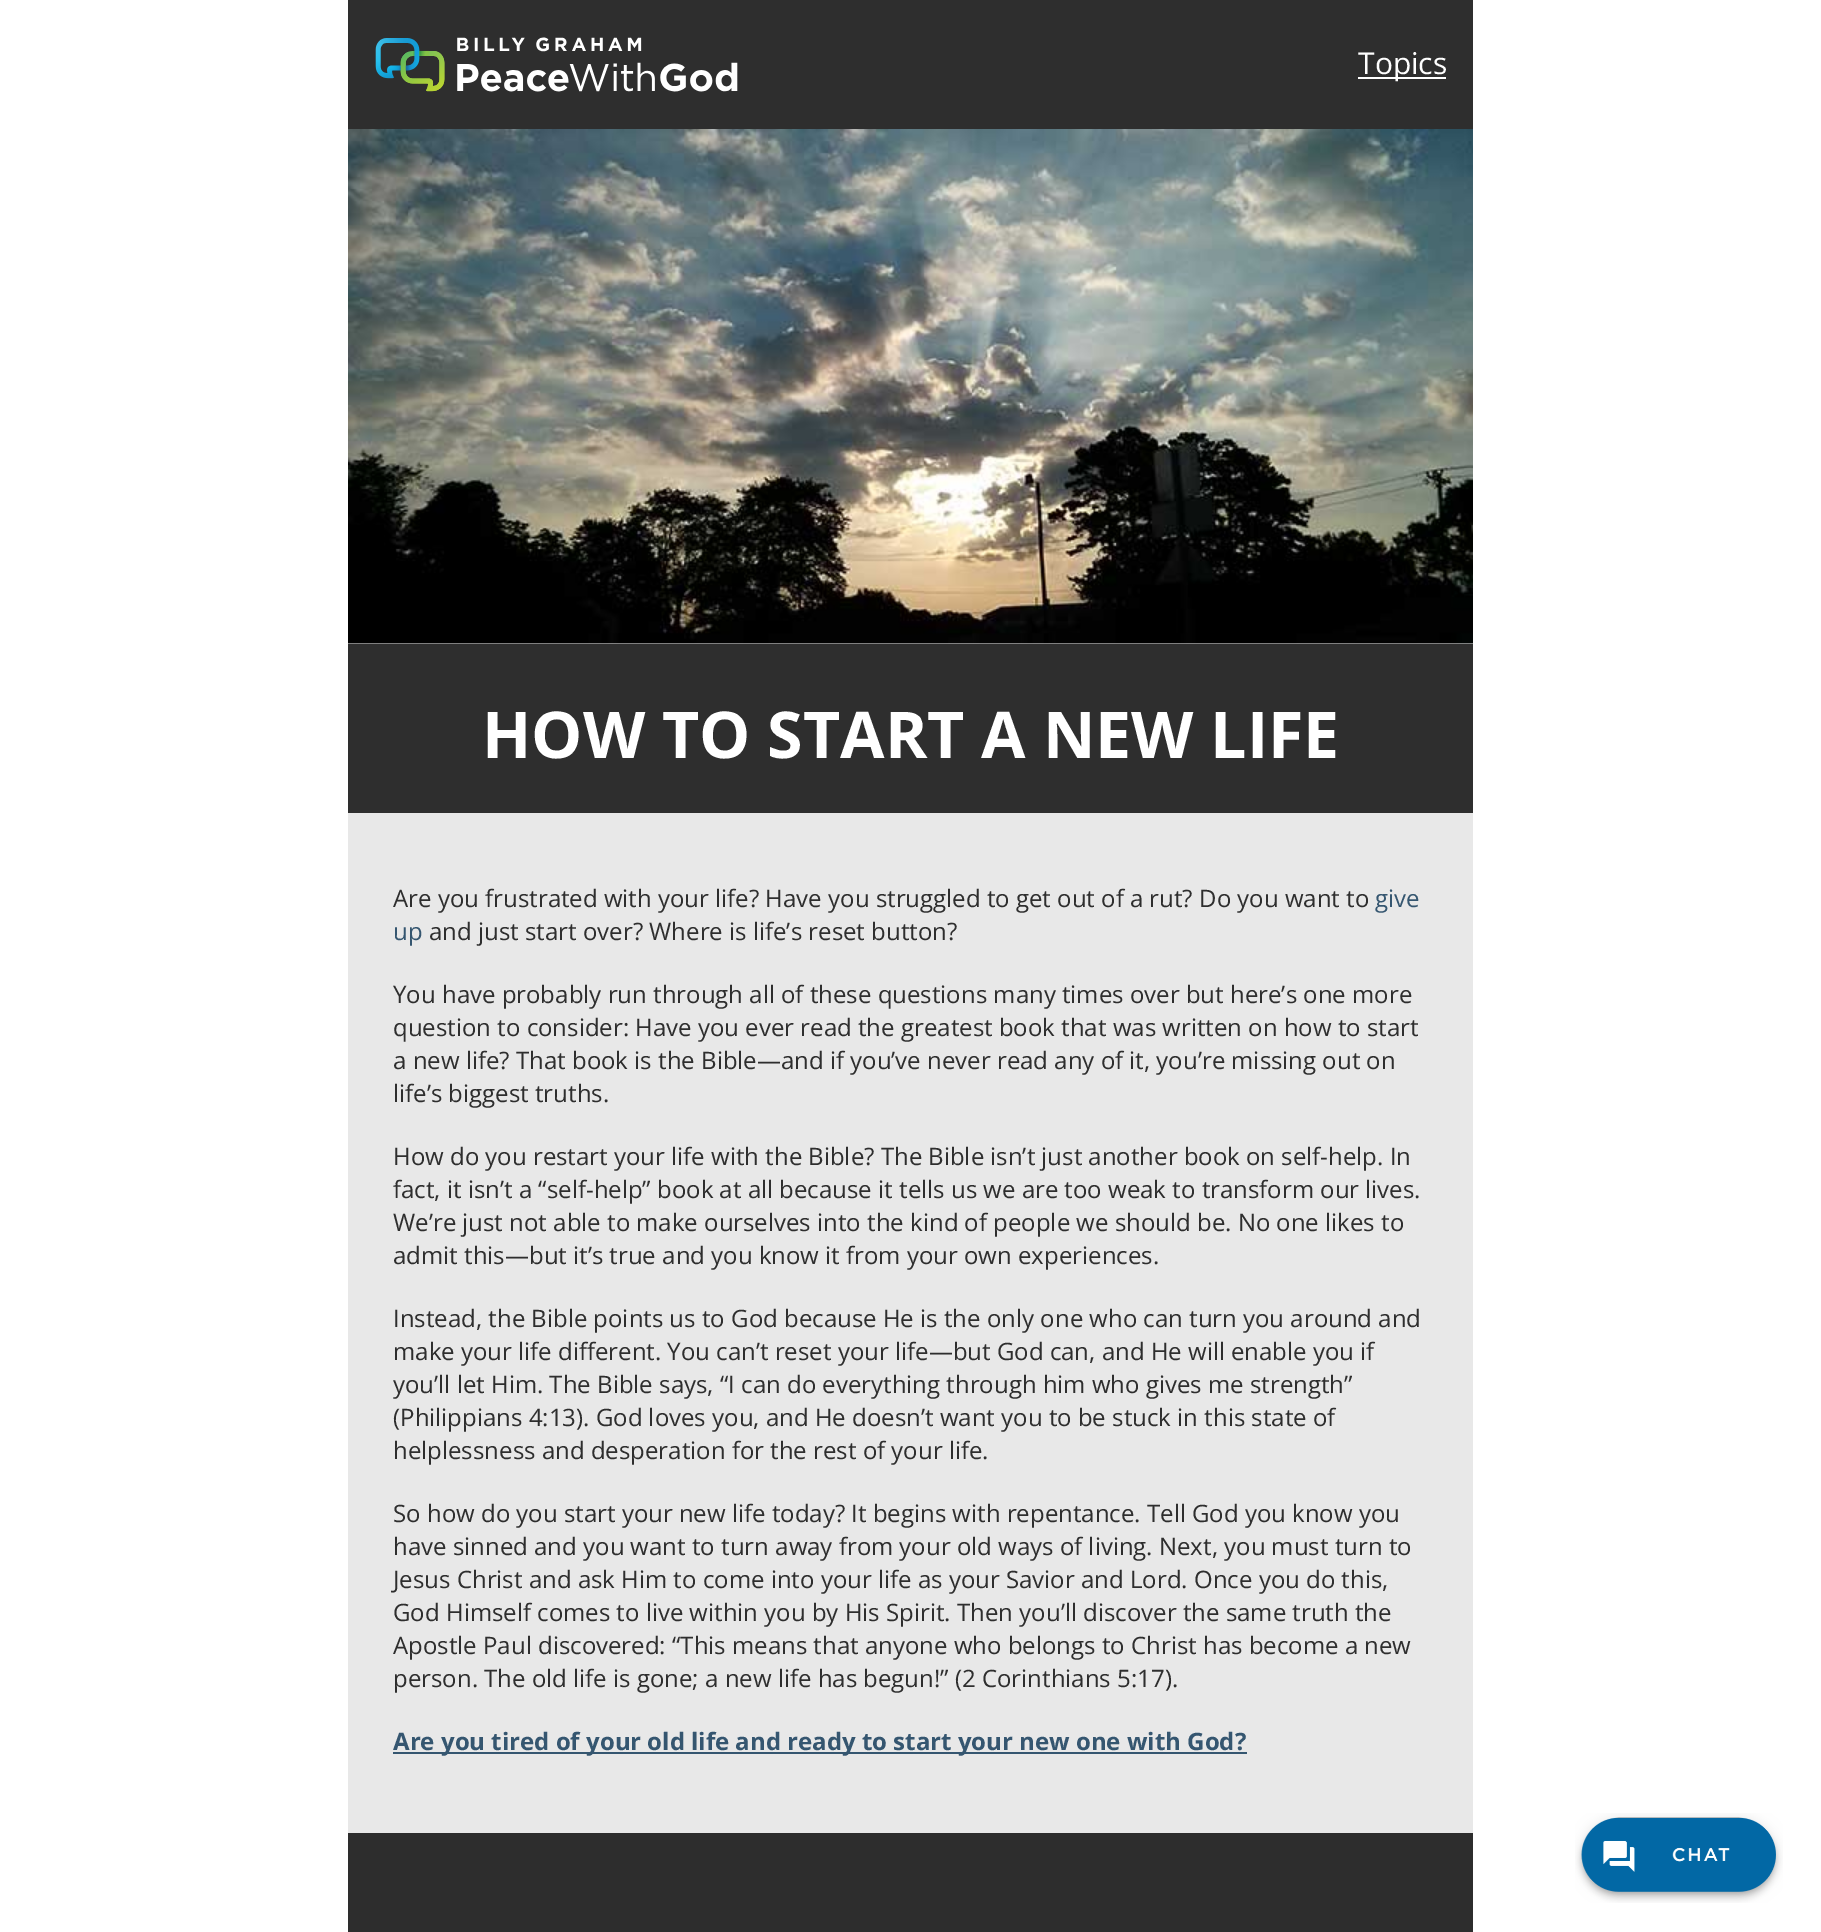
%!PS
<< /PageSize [1821 1932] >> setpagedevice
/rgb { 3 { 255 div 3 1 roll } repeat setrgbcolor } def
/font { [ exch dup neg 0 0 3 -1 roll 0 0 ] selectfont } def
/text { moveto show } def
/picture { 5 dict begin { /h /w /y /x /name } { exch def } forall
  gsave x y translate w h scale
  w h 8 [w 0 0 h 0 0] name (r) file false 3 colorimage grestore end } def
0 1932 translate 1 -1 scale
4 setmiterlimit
255 255 255 rgb
0 0 1821 1932 rectfill
46 46 46 rgb
348 0 1125 129 rectfill
(img_01.rgb) 375 37 363 55 picture
255 255 255 rgb
1358 77 88 2 rectfill
(img_02.rgb) 348 129 1125 515 picture
46 46 46 rgb
348 644 1125 169 rectfill
232 232 232 rgb
348 813 1125 1020 rectfill
53 86 112 rgb
393 1752 854 2 rectfill
45 45 45 rgb
348 1833 1125 99 rectfill
(img_03.rgb) 1575 1813 208 90 picture
/OpenSans-Regular 30 font
255 255 255 rgb
(Topics) 1358 74 text
/OpenSans-Bold 64.5 font
(HOW TO START A NEW LIFE) 482 758 text
/OpenSans-Regular 24 font
46 46 46 rgb
(Are you frustrated with your life? Have you struggled to get out of a rut? Do you want to) 393 907 text
53 86 112 rgb
(give) 1375 907 text
(up) 393 940 text
46 46 46 rgb
(and just start over? Where is life’s reset button?) 429 940 text
(You have probably run through all of these questions many times over but here’s one more) 393 1003 text
(question to consider: Have you ever read the greatest book that was written on how to start) 393 1036 text
(a new life? That book is the Bible—and if you’ve never read any of it, you’re missing out on) 393 1069 text
(life’s biggest truths.) 393 1102 text
(How do you restart your life with the Bible? The Bible isn’t just another book on self-help. In) 393 1165 text
(fact, it isn’t a “self-help” book at all because it tells us we are too weak to transform our lives.) 393 1198 text
(We’re just not able to make ourselves into the kind of people we should be. No one likes to) 393 1231 text
(admit this—but it’s true and you know it from your own experiences.) 393 1264 text
(Instead, the Bible points us to God because He is the only one who can turn you around and) 393 1327 text
(make your life different. You can’t reset your life—but God can, and He will enable you if) 393 1360 text
(you’ll let Him. The Bible says, “I can do everything through him who gives me strength”) 393 1393 text
(\(Philippians 4:13\). God loves you, and He doesn’t want you to be stuck in this state of) 393 1426 text
(helplessness and desperation for the rest of your life.) 393 1459 text
(So how do you start your new life today? It begins with repentance. Tell God you know you) 393 1522 text
(have sinned and you want to turn away from your old ways of living. Next, you must turn to) 393 1555 text
(Jesus Christ and ask Him to come into your life as your Savior and Lord. Once you do this,) 393 1588 text
(God Himself comes to live within you by His Spirit. Then you’ll discover the same truth the) 393 1621 text
(Apostle Paul discovered: “This means that anyone who belongs to Christ has become a new) 393 1654 text
(person. The old life is gone; a new life has begun!” \(2 Corinthians 5:17\).) 393 1687 text
/OpenSans-Bold 24 font
53 86 112 rgb
(Are you tired of your old life and ready to start your new one with God?) 393 1750 text
showpage
